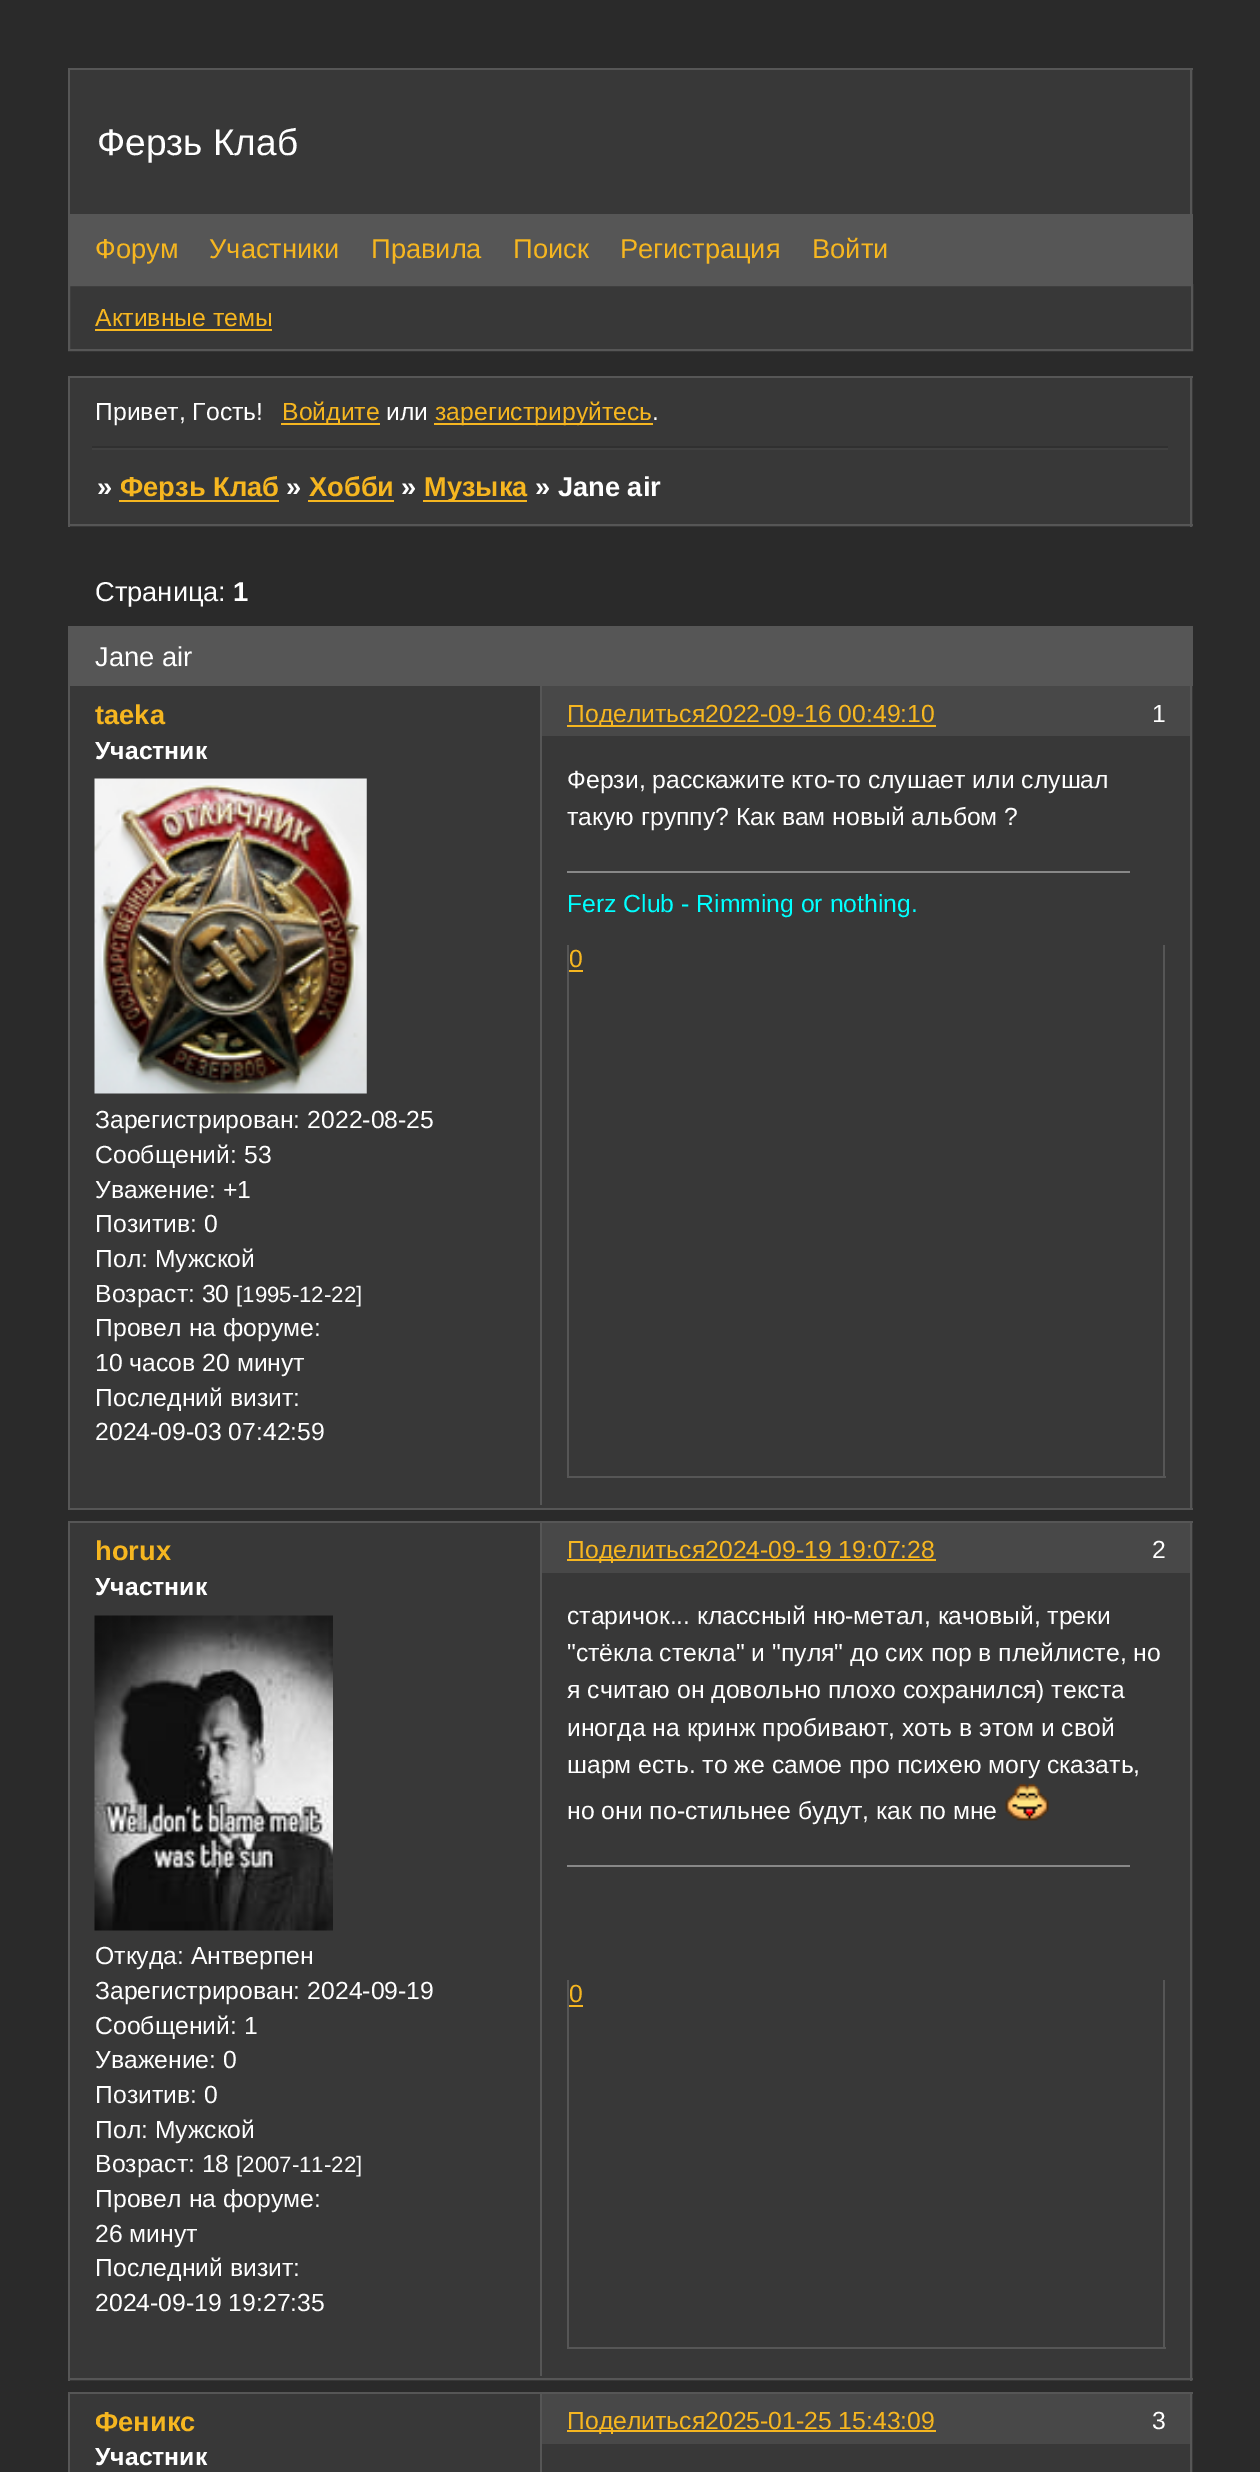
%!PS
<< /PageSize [1260 2472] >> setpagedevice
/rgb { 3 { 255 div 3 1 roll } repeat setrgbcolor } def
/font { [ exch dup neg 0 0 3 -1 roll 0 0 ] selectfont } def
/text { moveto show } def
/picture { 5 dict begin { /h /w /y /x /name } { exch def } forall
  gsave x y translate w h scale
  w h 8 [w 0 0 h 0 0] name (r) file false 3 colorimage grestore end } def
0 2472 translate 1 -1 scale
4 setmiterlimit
42 42 42 rgb
0 0 1260 2472 rectfill
56 56 56 rgb
70 70 1123 144 rectfill
86 86 86 rgb
68 68 1125 2 rectfill
1190 68 2 146 rectfill
68 68 2 146 rectfill
68 214 1125 70 rectfill
56 56 56 rgb
69 285 moveto 1123 0 rlineto 0 65 rlineto -1123 0 rlineto closepath gsave fill grestore
86 86 86 rgb
2 setlinewidth
stroke
246 182 32 rgb
95 329 177 2 rectfill
56 56 56 rgb
70 378 1123 68 rectfill
86 86 86 rgb
68 376 1125 2 rectfill
1190 376 2 74 rectfill
68 376 2 74 rectfill
246 182 32 rgb
281 423 99 2 rectfill
434 423 219 2 rectfill
56 56 56 rgb
70 446 1123 81 rectfill
48 48 48 rgb
92 446 1076 2 rectfill
64 64 64 rgb
92 448 1076 2 rectfill
86 86 86 rgb
1190 446 2 81 rectfill
68 524 1125 2 rectfill
68 446 2 81 rectfill
246 182 32 rgb
119 500 160 2 rectfill
308 500 86 2 rectfill
423 500 104 2 rectfill
86 86 86 rgb
68 626 1125 60 rectfill
56 56 56 rgb
70 686 1123 50 rectfill
86 86 86 rgb
1190 684 2 54 rectfill
540 686 2 52 rectfill
56 56 56 rgb
70 736 1123 772 rectfill
86 86 86 rgb
1190 736 2 774 rectfill
68 1508 1125 2 rectfill
68 684 2 54 rectfill
68 736 2 774 rectfill
(img_01.rgb) 94 778 273 316 picture
540 736 2 769 rectfill
136 136 136 rgb
567 871 563 2 rectfill
86 86 86 rgb
1163 945 2 533 rectfill
567 1476 599 2 rectfill
567 945 2 533 rectfill
246 182 32 rgb
569 970 14 2 rectfill
72 72 72 rgb
542 686 648 50 rectfill
246 182 32 rgb
567 725 369 2 rectfill
56 56 56 rgb
70 1523 1123 50 rectfill
86 86 86 rgb
68 1521 1125 2 rectfill
1190 1521 2 54 rectfill
540 1523 2 52 rectfill
56 56 56 rgb
70 1573 1123 808 rectfill
86 86 86 rgb
1190 1573 2 808 rectfill
68 2378 1125 2 rectfill
68 1521 2 54 rectfill
68 1573 2 808 rectfill
(img_02.rgb) 94 1615 239 316 picture
540 1573 2 803 rectfill
(img_03.rgb) 1005 1783 44 38 picture
136 136 136 rgb
567 1865 563 2 rectfill
86 86 86 rgb
1163 1980 2 369 rectfill
567 2347 599 2 rectfill
567 1980 2 369 rectfill
246 182 32 rgb
569 2005 14 2 rectfill
72 72 72 rgb
542 1523 648 50 rectfill
246 182 32 rgb
567 1559 369 2 rectfill
56 56 56 rgb
70 2394 1123 50 rectfill
86 86 86 rgb
68 2392 1125 2 rectfill
1190 2392 2 54 rectfill
540 2394 2 52 rectfill
56 56 56 rgb
70 2444 1123 28 rectfill
86 86 86 rgb
1190 2444 2 28 rectfill
540 2444 2 28 rectfill
68 2392 2 80 rectfill
72 72 72 rgb
542 2394 648 50 rectfill
246 182 32 rgb
567 2430 369 2 rectfill
/LiberationSans-Regular 37 font
255 255 255 rgb
(Ферзь Клаб) 97 155 text
/LiberationSans-Regular 27.25 font
246 182 32 rgb
(Форум) 95 258 text
(Участники) 209 258 text
(Правила) 371 258 text
(Поиск) 513 258 text
(Регистрация) 620 258 text
(Войти) 812 258 text
/LiberationSans-Regular 24.75 font
(Активные темы) 95 326 text
255 255 255 rgb
(Привет, Гость!) 95 420 text
246 182 32 rgb
(Войдите) 282 420 text
255 255 255 rgb
(или) 386 420 text
246 182 32 rgb
(зарегистрируйтесь) 435 420 text
255 255 255 rgb
(.) 652 420 text
/LiberationSans-Bold 27.25 font
(») 97 496 text
246 182 32 rgb
(Ферзь Клаб) 120 496 text
255 255 255 rgb
(») 286 496 text
246 182 32 rgb
(Хобби) 309 496 text
255 255 255 rgb
(») 401 496 text
246 182 32 rgb
(Музыка) 424 496 text
255 255 255 rgb
(» Jane air) 535 496 text
/LiberationSans-Regular 27.25 font
(Страница:) 95 601 text
/LiberationSans-Bold 27.25 font
(1) 233 601 text
/LiberationSans-Regular 27.25 font
(Jane air) 95 666 text
/LiberationSans-Bold 27.25 font
246 182 32 rgb
(taeka) 95 724 text
/LiberationSans-Bold 24.75 font
255 255 255 rgb
(Участник) 95 759 text
/LiberationSans-Regular 24.75 font
(Зарегистрирован: 2022-08-25) 95 1128 text
(Сообщений: 53) 95 1163 text
(Уважение: +1) 95 1198 text
(Позитив: 0) 95 1232 text
(Пол: Мужской) 95 1267 text
(Возраст: 30) 95 1302 text
/LiberationSans-Regular 22.25 font
([1995-12-22]) 236 1302 text
/LiberationSans-Regular 24.75 font
(Провел на форуме:) 95 1336 text
(10 часов 20 минут) 95 1371 text
(Последний визит:) 95 1406 text
(2024-09-03 07:42:59) 95 1440 text
(Ферзи, расскажите кто-то слушает или слушал) 567 788 text
(такую группу? Как вам новый альбом ?) 567 825 text
0 255 255 rgb
(Ferz Club - Rimming or nothing.) 567 912 text
246 182 32 rgb
(0) 569 967 text
(Поделиться2022-09-16 00:49:10) 567 722 text
255 255 255 rgb
(1) 1152 722 text
/LiberationSans-Bold 27.25 font
246 182 32 rgb
(horux) 95 1560 text
/LiberationSans-Bold 24.75 font
255 255 255 rgb
(Участник) 95 1595 text
/LiberationSans-Regular 24.75 font
(Откуда: Антверпен) 95 1964 text
(Зарегистрирован: 2024-09-19) 95 1999 text
(Сообщений: 1) 95 2034 text
(Уважение: 0) 95 2068 text
(Позитив: 0) 95 2103 text
(Пол: Мужской) 95 2138 text
(Возраст: 18) 95 2172 text
/LiberationSans-Regular 22.25 font
([2007-11-22]) 236 2172 text
/LiberationSans-Regular 24.75 font
(Провел на форуме:) 95 2207 text
(26 минут) 95 2242 text
(Последний визит:) 95 2276 text
(2024-09-19 19:27:35) 95 2311 text
(старичок... классный ню-метал, качовый, треки) 567 1624 text
("стёкла стекла" и "пуля" до сих пор в плейлисте, но) 567 1661 text
(я считаю он довольно плохо сохранился\) текста) 567 1698 text
(иногда на кринж пробивают, хоть в этом и свой) 567 1736 text
(шарм есть. то же самое про психею могу сказать,) 567 1773 text
(но они по-стильнее будут, как по мне) 567 1819 text
246 182 32 rgb
(0) 569 2002 text
(Поделиться2024-09-19 19:07:28) 567 1558 text
255 255 255 rgb
(2) 1152 1558 text
/LiberationSans-Bold 27.25 font
246 182 32 rgb
(Феникс) 95 2431 text
/LiberationSans-Bold 24.75 font
255 255 255 rgb
(Участник) 95 2465 text
/LiberationSans-Regular 24.75 font
246 182 32 rgb
(Поделиться2025-01-25 15:43:09) 567 2429 text
255 255 255 rgb
(3) 1152 2429 text
showpage
